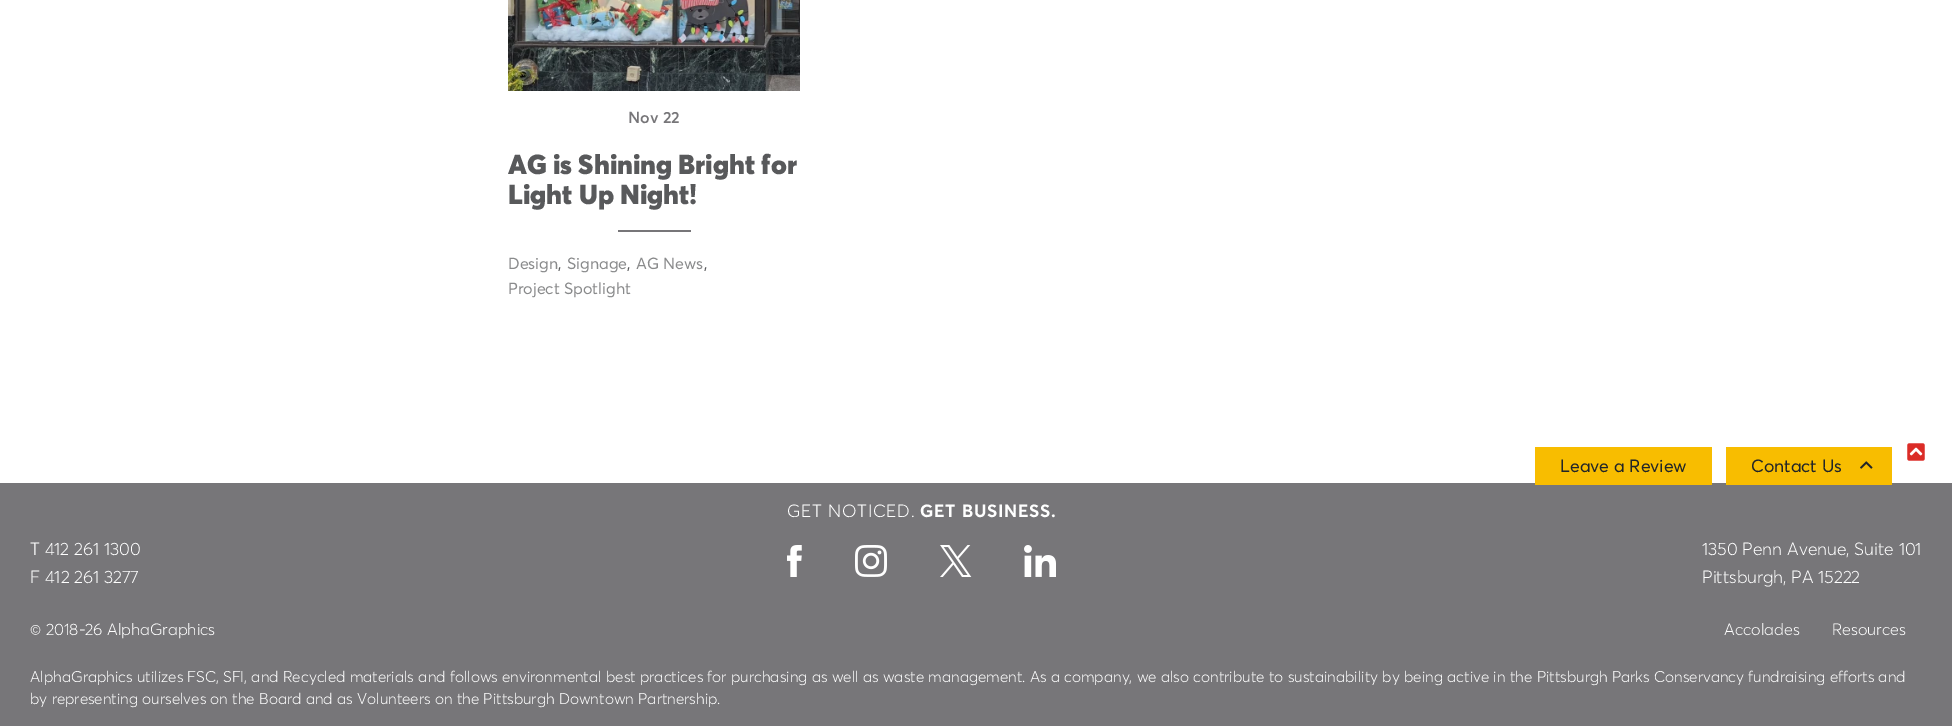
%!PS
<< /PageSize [1952 726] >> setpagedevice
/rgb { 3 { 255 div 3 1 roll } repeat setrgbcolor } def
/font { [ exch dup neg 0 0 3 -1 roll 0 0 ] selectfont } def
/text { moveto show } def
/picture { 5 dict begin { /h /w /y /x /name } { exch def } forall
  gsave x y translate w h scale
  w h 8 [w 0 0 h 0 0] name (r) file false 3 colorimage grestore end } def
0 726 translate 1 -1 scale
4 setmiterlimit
255 255 255 rgb
0 0 1952 726 rectfill
(img_01.rgb) 508 0 292 91 picture
119 118 121 rgb
618 230 73 2 rectfill
(img_02.rgb) 1907 443 18 18 picture
0 483 1952 243 rectfill
(img_03.rgb) 787 545 15 32 picture
(img_04.rgb) 855 545 32 32 picture
(img_05.rgb) 940 545 32 32 picture
(img_06.rgb) 1024 545 32 32 picture
248 189 0 rgb
1535 447 177 38 rectfill
1726 447 166 38 rectfill
(img_07.rgb) 1860 461 13 8 picture
/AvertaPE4-Regular 16 font
119 118 121 rgb
(Nov 22) 628 123 text
/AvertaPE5-Regular 27.25 font
88 89 91 rgb
(AG is Shining Bright for) 508 174 text
(Light Up Night!) 508 204 text
/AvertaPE-Regular 16 font
138 139 140 rgb
(Design) 508 269 text
88 89 91 rgb
(,) 558 269 text
138 139 140 rgb
(Signage) 567 269 text
88 89 91 rgb
(,) 627 269 text
138 139 140 rgb
(AG News) 636 269 text
88 89 91 rgb
(,) 704 269 text
138 139 140 rgb
(Project Spotlight) 508 294 text
/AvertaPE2-Regular 17.6 font
255 255 255 rgb
787 517 moveto 0.75 0 (GET NOTICED.) ashow
/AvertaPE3-Regular 17.6 font
920 517 moveto 0.75 0 (GET BUSINESS.) ashow
/AvertaPE2-Regular 17.6 font
(T 412 261 1300) 30 555 text
(F 412 261 3277) 30 583 text
(1350 Penn Avenue, Suite 101) 1702 555 text
(Pittsburgh, PA 15222) 1702 583 text
/AvertaPE2-Regular 16.25 font
(© 2018-26 AlphaGraphics) 30 635 text
(Accolades) 1724 635 text
(Resources) 1832 635 text
/AvertaPE2-Regular 15.4 font
(AlphaGraphics utilizes FSC, SFI, and Recycled materials and follows environmental best practices for purchasing as well as waste management. As a company, we also contribute to sustainability by being active in the Pittsburgh Parks Conservancy fundraising efforts and) 30 682 text
(by representing ourselves on the Board and as Volunteers on the Pittsburgh Downtown Partnership.) 30 704 text
/AvertaPE-Regular 17.6 font
33 37 41 rgb
(Leave a Review) 1560 472 text
(Contact Us) 1751 472 text
showpage
